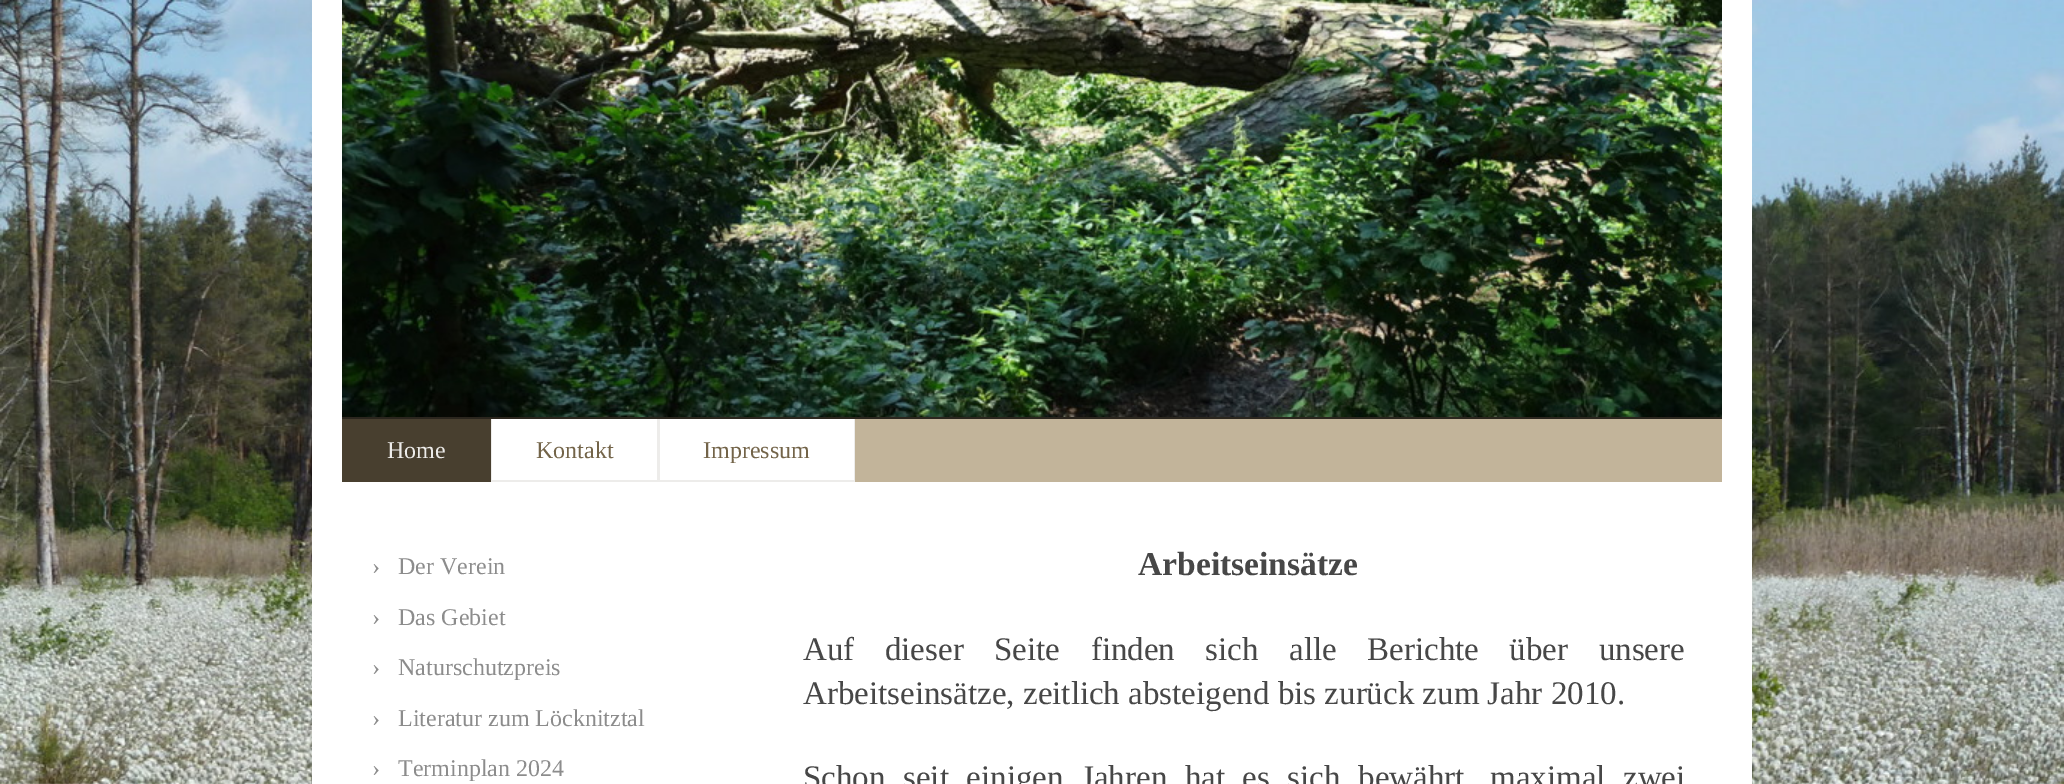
%!PS
<< /PageSize [2064 784] >> setpagedevice
/rgb { 3 { 255 div 3 1 roll } repeat setrgbcolor } def
/font { [ exch dup neg 0 0 3 -1 roll 0 0 ] selectfont } def
/text { moveto show } def
/picture { 5 dict begin { /h /w /y /x /name } { exch def } forall
  gsave x y translate w h scale
  w h 8 [w 0 0 h 0 0] name (r) file false 3 colorimage grestore end } def
0 784 translate 1 -1 scale
4 setmiterlimit
255 255 255 rgb
0 0 2064 784 rectfill
(img_01.rgb) 0 0 2064 784 picture
312 0 1440 784 rectfill
(img_02.rgb) 342 0 1380 417 picture
194 180 154 rgb
855 419 867 63 rectfill
43 38 30 rgb
342 417 1380 2 rectfill
72 63 47 rgb
342 419 149 63 rectfill
237 236 234 rgb
491 419 364 63 rectfill
255 255 255 rgb
492 419 165 61 rectfill
660 419 194 61 rectfill
/LiberationSerif-Regular 24 font
237 236 234 rgb
(Home) 387 458 text
115 100 73 rgb
(Kontakt) 536 458 text
(Impressum) 703 458 text
140 140 140 rgb
(›) 372 574 text
(Der Verein) 398 574 text
(›) 372 625 text
(Das Gebiet) 398 625 text
(›) 372 675 text
(Naturschutzpreis) 398 675 text
(›) 372 726 text
(Literatur zum Löcknitztal) 398 726 text
(›) 372 776 text
(Terminplan 2024) 398 776 text
/LiberationSerif-Bold 33.5 font
71 71 71 rgb
(Arbeitseinsätze) 1138 575 text
/LiberationSerif-Regular 33 font
803 660 moveto 22.25 0 32 (Auf dieser Seite finden sich alle Berichte über unsere) widthshow
(Arbeitseinsätze, zeitlich absteigend bis zurück zum Jahr 2010.) 803 704 text
803 788 moveto 9.25 0 32 (Schon seit einigen Jahren hat es sich bewährt, maximal zwei) widthshow
showpage
